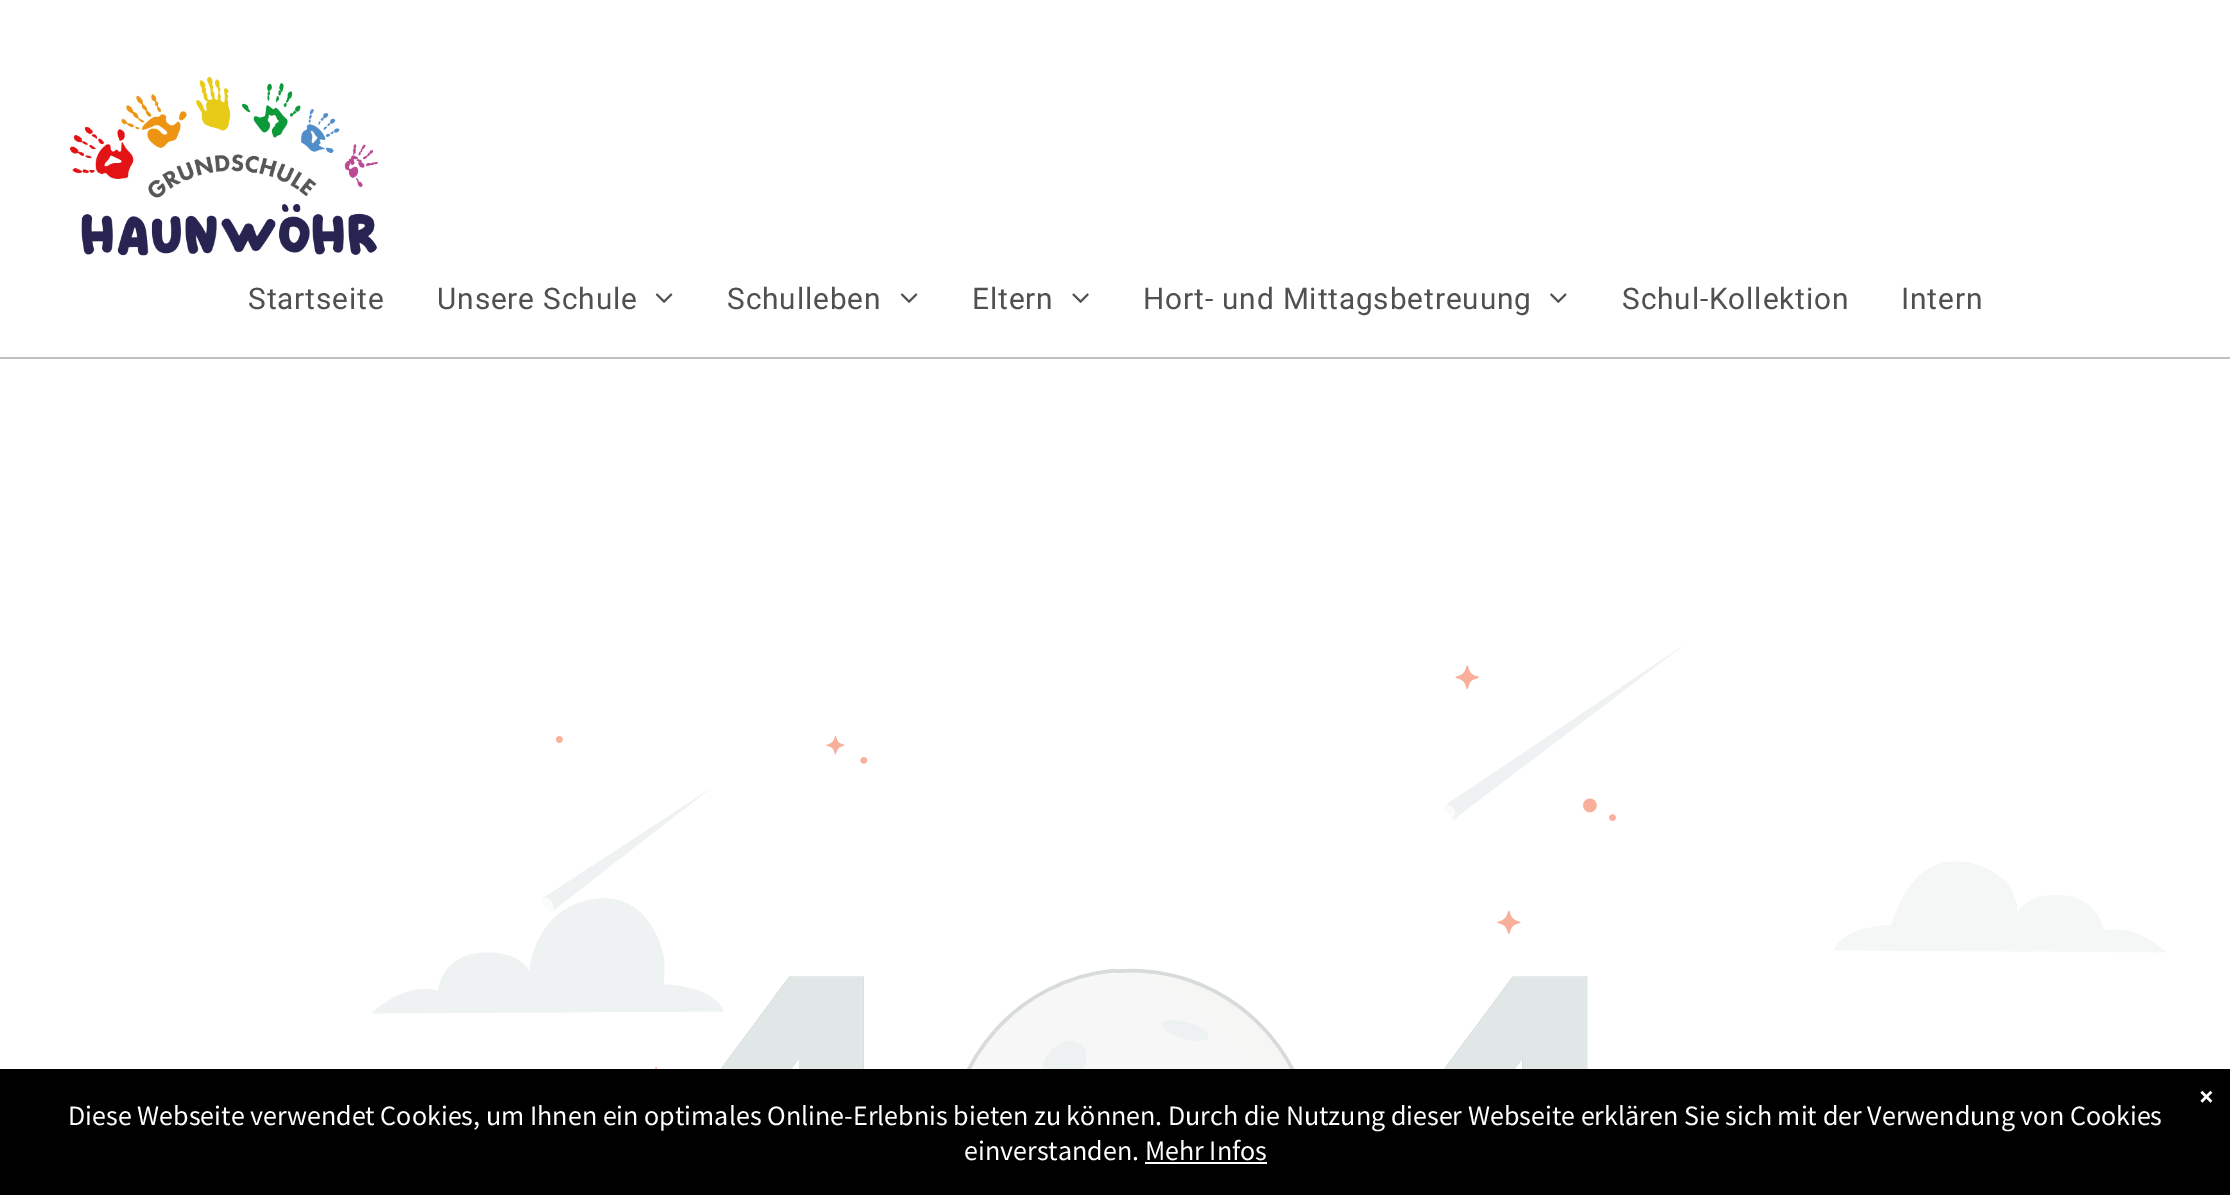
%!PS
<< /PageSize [2230 1195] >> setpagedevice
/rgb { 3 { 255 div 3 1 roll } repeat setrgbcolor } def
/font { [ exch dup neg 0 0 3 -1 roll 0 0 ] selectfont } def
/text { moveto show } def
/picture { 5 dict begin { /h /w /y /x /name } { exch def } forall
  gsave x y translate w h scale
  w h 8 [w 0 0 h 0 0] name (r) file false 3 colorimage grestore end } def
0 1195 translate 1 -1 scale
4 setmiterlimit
255 255 255 rgb
0 0 2230 1195 rectfill
(img_01.rgb) 70 77 308 179 picture
(img_02.rgb) 655 293 18 10 picture
(img_02.rgb) 900 293 18 10 picture
(img_03.rgb) 1072 293 17 10 picture
(img_04.rgb) 1550 293 17 10 picture
193 191 191 rgb
0 357 2230 2 rectfill
(img_05.rgb) 371 644 1795 425 picture
0 0 0 rgb
0 1069 2230 126 rectfill
255 255 255 rgb
1145 1162 122 2 rectfill
/Roboto-Regular 29.75 font
82 79 79 rgb
248 309 moveto 0.9 0 (Startseite) ashow
437 309 moveto 0.9 0 (Unsere Schule) ashow
727 309 moveto 0.9 0 (Schulleben) ashow
972 309 moveto 0.9 0 (Eltern) ashow
1143 309 moveto 0.9 0 (Hort- und Mittagsbetreuung) ashow
1622 309 moveto 0.9 0 (Schul-Kollektion) ashow
1901 309 moveto 0.9 0 (Intern) ashow
/SourceSansPro-Bold 28 font
255 255 255 rgb
(×) 2199 1106 text
/SourceSansPro-Regular 28 font
(Diese Webseite verwendet Cookies, um Ihnen ein optimales Online-Erlebnis bieten zu können. Durch die Nutzung dieser Webseite erklären Sie sich mit der Verwendung von Cookies) 68 1125 text
(einverstanden. Mehr Infos) 964 1160 text
showpage
